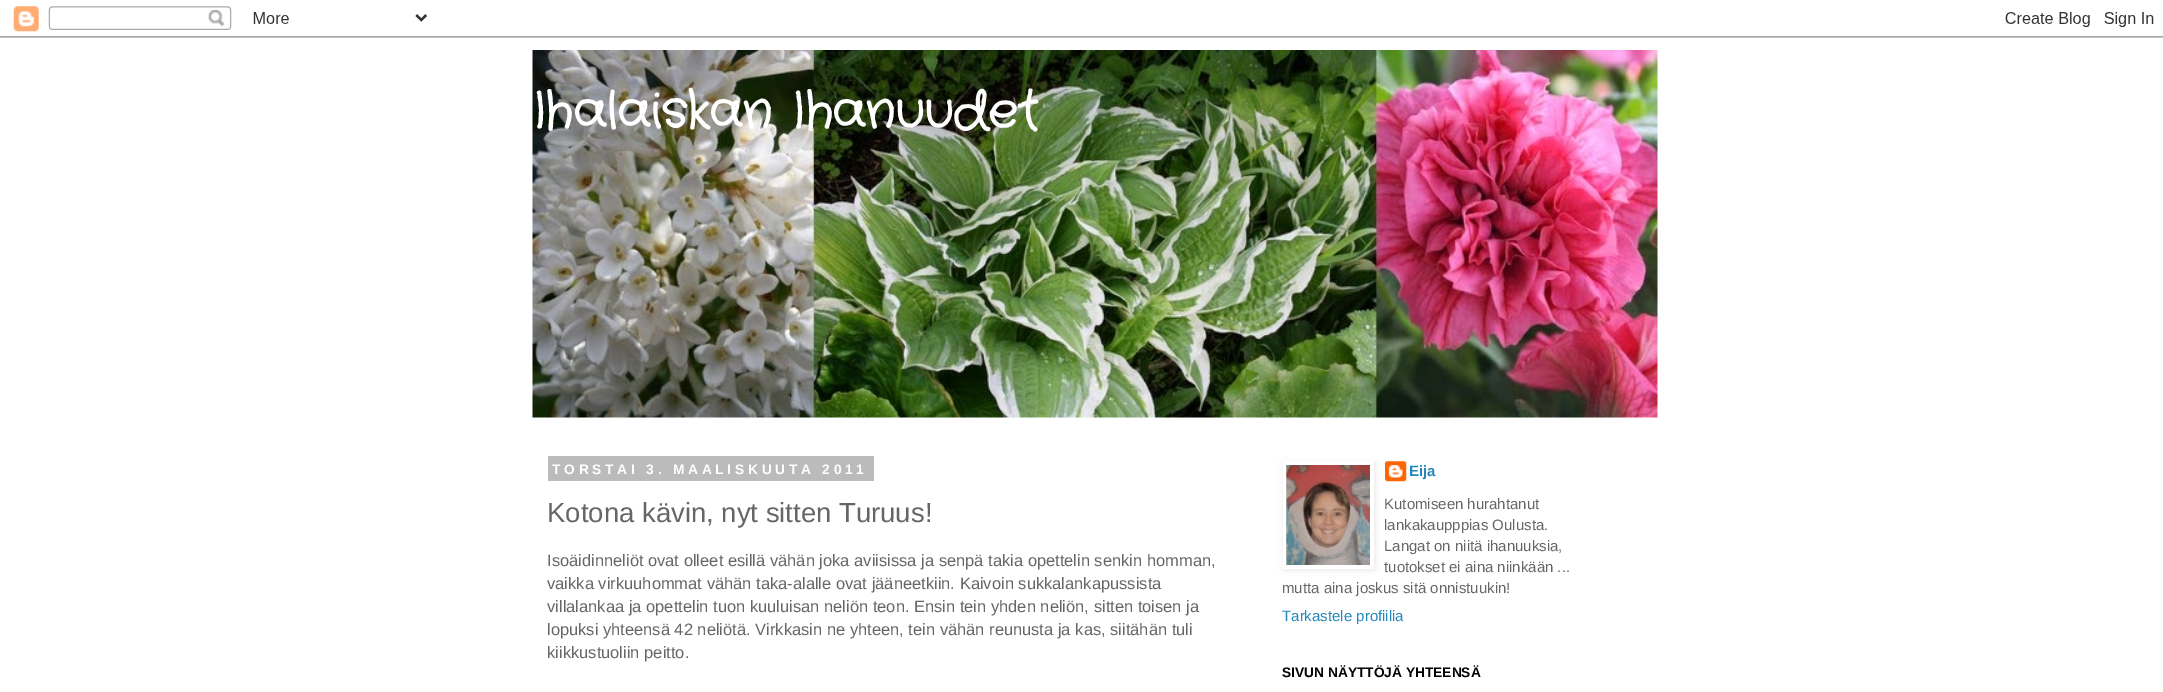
%!PS
<< /PageSize [2163 692] /PageUsesTransparency true >> setpagedevice
/rgb { 3 { 255 div 3 1 roll } repeat setrgbcolor } def
/font { [ exch dup neg 0 0 3 -1 roll 0 0 ] selectfont } def
/text { moveto show } def
/alpha { dup .setfillconstantalpha .setstrokeconstantalpha } def
/roundrect { 5 dict begin { /r /h /w /y /x } { exch def } forall
  x r add y moveto x w add y 2 copy h add r arct x w add y h add x 1 index r arct
  x y h add x y r arct x y 2 copy exch w add exch r arct closepath end } def
/shadow { 12 dict begin { /a /b /q /h /w /y /x } { exch def } forall gsave /was 0 def
  9 -2 -9 { dup b mul 4 div /e exch def 1 sub .425 mul 2.718 exch exp 1 add a .99 .min exch div /now exch def
    1 1 now sub 1 was sub div sub alpha /was now def
    w h .min e 2 mul add 0 gt { x e sub y e sub w e 2 mul add h e 2 mul add
      q e add b .6 mul add w h .min 2 div e add .min 0 .max roundrect fill } if } for grestore end } def
/picture { 5 dict begin { /h /w /y /x /name } { exch def } forall
  gsave x y translate w h scale
  w h 8 [w 0 0 h 0 0] name (r) file false 3 colorimage grestore end } def
0 .pushpdf14devicefilter
0 692 translate 1 -1 scale
4 setmiterlimit
255 255 255 rgb
0 0 2163 692 rectfill
(img_01.rgb) 0 6 2163 32 picture
(img_02.rgb) 532 50 1126 368 picture
187 187 187 rgb
548 456 326 25 rectfill
0 0 0 rgb
1284 463 91 107 0 3 0.1 shadow
255 255 255 rgb
1283 461 91 108 rectfill
(img_03.rgb) 1286 465 84 100 picture
(img_04.rgb) 1385 461 22 21 picture
/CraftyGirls-Bold 50 font
(Ihalaiskan Ihanuudet) 532 126 text
/LiberationSans-Bold 13.75 font
552 474 moveto 3.75 0 (TORSTAI 3. MAALISKUUTA 2011) ashow
/LiberationSans-Regular 27.5 font
102 102 102 rgb
(Kotona kävin, nyt sitten Turuus!) 547 522 text
/LiberationSans-Regular 16.5 font
(Isoäidinneliöt ovat olleet esillä vähän joka aviisissa ja senpä takia opettelin senkin homman,) 547 566 text
(vaikka virkuuhommat vähän taka-alalle ovat jääneetkiin. Kaivoin sukkalankapussista) 547 589 text
(villalankaa ja opettelin tuon kuuluisan neliön teon. Ensin tein yhden neliön, sitten toisen ja) 547 612 text
(lopuksi yhteensä 42 neliötä. Virkkasin ne yhteen, tein vähän reunusta ja kas, siitähän tuli) 547 635 text
(kiikkustuoliin peitto.) 547 658 text
/LiberationSans-Bold 15 font
34 136 187 rgb
(Eija) 1409 476 text
/LiberationSans-Regular 15 font
102 102 102 rgb
(Kutomiseen hurahtanut) 1384 509 text
(lankakaupppias Oulusta.) 1384 530 text
(Langat on niitä ihanuuksia,) 1384 551 text
(tuotokset ei aina niinkään ...) 1384 572 text
(mutta aina joskus sitä onnistuukin!) 1282 593 text
34 136 187 rgb
(Tarkastele profiilia) 1282 621 text
/LiberationSans-Bold 13.75 font
0 0 0 rgb
(SIVUN NÄYTTÖJÄ YHTEENSÄ) 1282 677 text
.poppdf14devicefilter showpage
